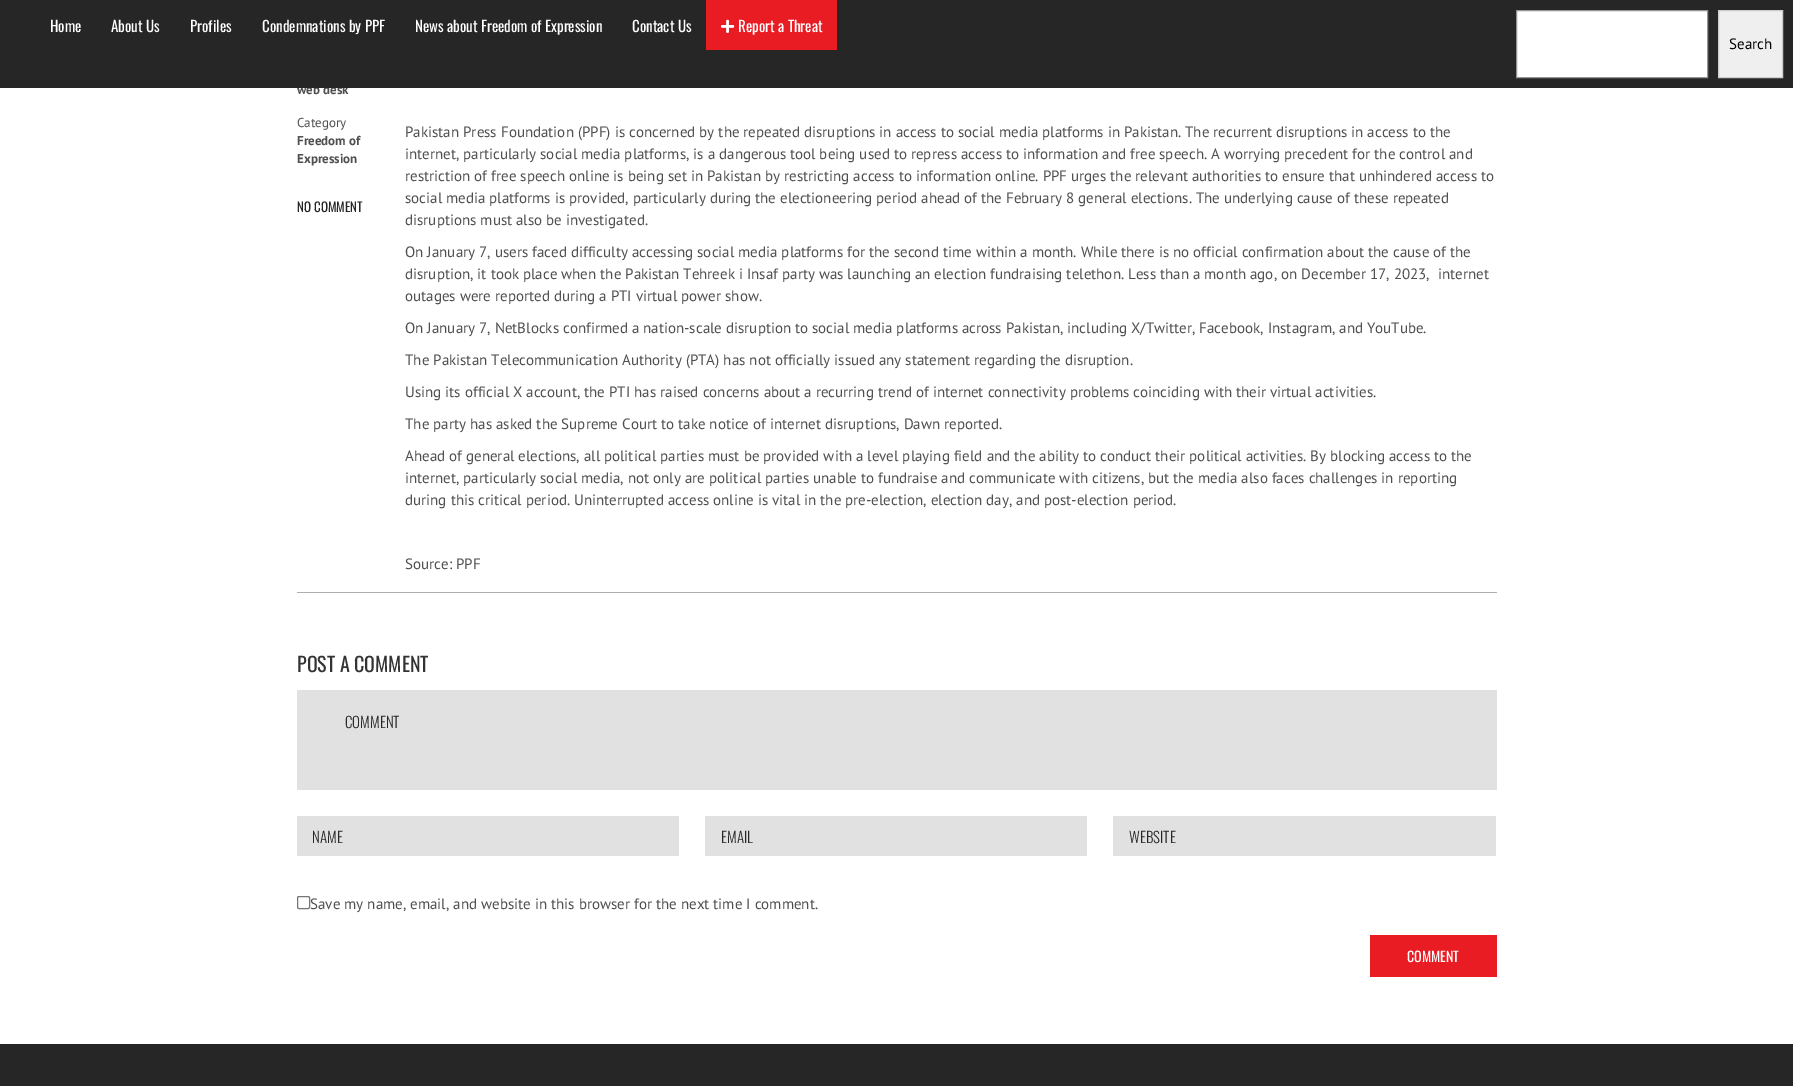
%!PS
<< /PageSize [1793 1086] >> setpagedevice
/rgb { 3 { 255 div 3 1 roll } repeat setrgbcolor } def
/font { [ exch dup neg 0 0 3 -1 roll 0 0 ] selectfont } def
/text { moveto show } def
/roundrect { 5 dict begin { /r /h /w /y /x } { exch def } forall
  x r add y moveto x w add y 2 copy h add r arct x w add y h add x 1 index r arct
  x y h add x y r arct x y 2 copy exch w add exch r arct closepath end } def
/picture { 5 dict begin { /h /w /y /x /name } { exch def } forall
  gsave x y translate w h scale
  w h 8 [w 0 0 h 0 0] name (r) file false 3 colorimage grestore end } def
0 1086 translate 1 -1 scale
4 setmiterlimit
255 255 255 rgb
0 0 1793 1086 rectfill
174 174 174 rgb
297 592 1200 1 rectfill
225 225 225 rgb
297 690 1200 100 rectfill
297 816 382 40 rectfill
705 816 382 40 rectfill
1113 816 383 40 rectfill
118 118 118 rgb
297.5 896.5 12 12 1.5 roundrect stroke
233 27 35 rgb
1370 935 127 42 rectfill
38 38 38 rgb
0 1044 1793 42 rectfill
/PTSans-Bold 13 font
79 79 79 rgb
(web desk) 297 94 text
38 38 38 rgb
0 0 1793 88 rectfill
233 27 35 rgb
706 0 131 50 rectfill
/Oswald-Regular 15 font
255 255 255 rgb
(Report a Threat) 738 32 text
(img_01.rgb) 721 19 14 14 picture
(Contact Us) 632 32 text
(News about Freedom of Expression) 415 32 text
(Condemnations by PPF) 262 32 text
(Profiles) 190 32 text
(About Us) 111 32 text
(Home) 50 32 text
239 239 239 rgb
1718.5 10.5 moveto 64 0 rlineto 0 67 rlineto -64 0 rlineto closepath gsave fill grestore
204 204 204 rgb
stroke
/PTSans-Regular 15 font
0 0 0 rgb
(Search) 1729 49 text
255 255 255 rgb
1516.5 10.5 moveto 191 0 rlineto 0 67 rlineto -191 0 rlineto closepath gsave fill grestore
148 148 148 rgb
stroke
/PTSans-Regular 13 font
79 79 79 rgb
(Category) 297 127 text
/PTSans-Bold 13 font
(Freedom of) 297 145 text
(Expression) 297 163 text
/Oswald-Regular 13 font
38 38 38 rgb
(NO COMMENT) 297 212 text
/PTSans-Regular 15 font
79 79 79 rgb
(Pakistan Press Foundation \(PPF\) is concerned by the repeated disruptions in access to social media platforms in Pakistan. The recurrent disruptions in access to the) 405 137 text
(internet, particularly social media platforms, is a dangerous tool being used to repress access to information and free speech. A worrying precedent for the control and) 405 159 text
(restriction of free speech online is being set in Pakistan by restricting access to information online. PPF urges the relevant authorities to ensure that unhindered access to) 405 181 text
(social media platforms is provided, particularly during the electioneering period ahead of the February 8 general elections. The underlying cause of these repeated) 405 203 text
(disruptions must also be investigated.) 405 225 text
(On January 7, users faced difficulty accessing social media platforms for the second time within a month. While there is no official confirmation about the cause of the) 405 257 text
(disruption, it took place when the Pakistan Tehreek i Insaf party was launching an election fundraising telethon. Less than a month ago, on December 17, 2023,  internet) 405 279 text
(outages were reported during a PTI virtual power show.) 405 301 text
(On January 7, NetBlocks confirmed a nation-scale disruption to social media platforms across Pakistan, including X/Twitter, Facebook, Instagram, and YouTube.) 405 333 text
(The Pakistan Telecommunication Authority \(PTA\) has not officially issued any statement regarding the disruption.) 405 365 text
(Using its official X account, the PTI has raised concerns about a recurring trend of internet connectivity problems coinciding with their virtual activities.) 405 397 text
(The party has asked the Supreme Court to take notice of internet disruptions, Dawn reported.) 405 429 text
(Ahead of general elections, all political parties must be provided with a level playing field and the ability to conduct their political activities. By blocking access to the) 405 461 text
(internet, particularly social media, not only are political parties unable to fundraise and communicate with citizens, but the media also faces challenges in reporting) 405 483 text
(during this critical period. Uninterrupted access online is vital in the pre-election, election day, and post-election period.) 405 505 text
(Source: PPF) 405 569 text
/Oswald-Regular 20 font
51 51 51 rgb
(POST A COMMENT) 297 672 text
/Oswald-Light 15 font
38 38 38 rgb
(COMMENT) 345 728 text
(NAME) 312 843 text
(EMAIL) 721 843 text
(WEBSITE) 1129 843 text
/PTSans-Regular 15 font
79 79 79 rgb
(Save my name, email, and website in this browser for the next time I comment.) 310 909 text
/Oswald-Regular 14 font
255 255 255 rgb
(COMMENT) 1407 962 text
showpage
